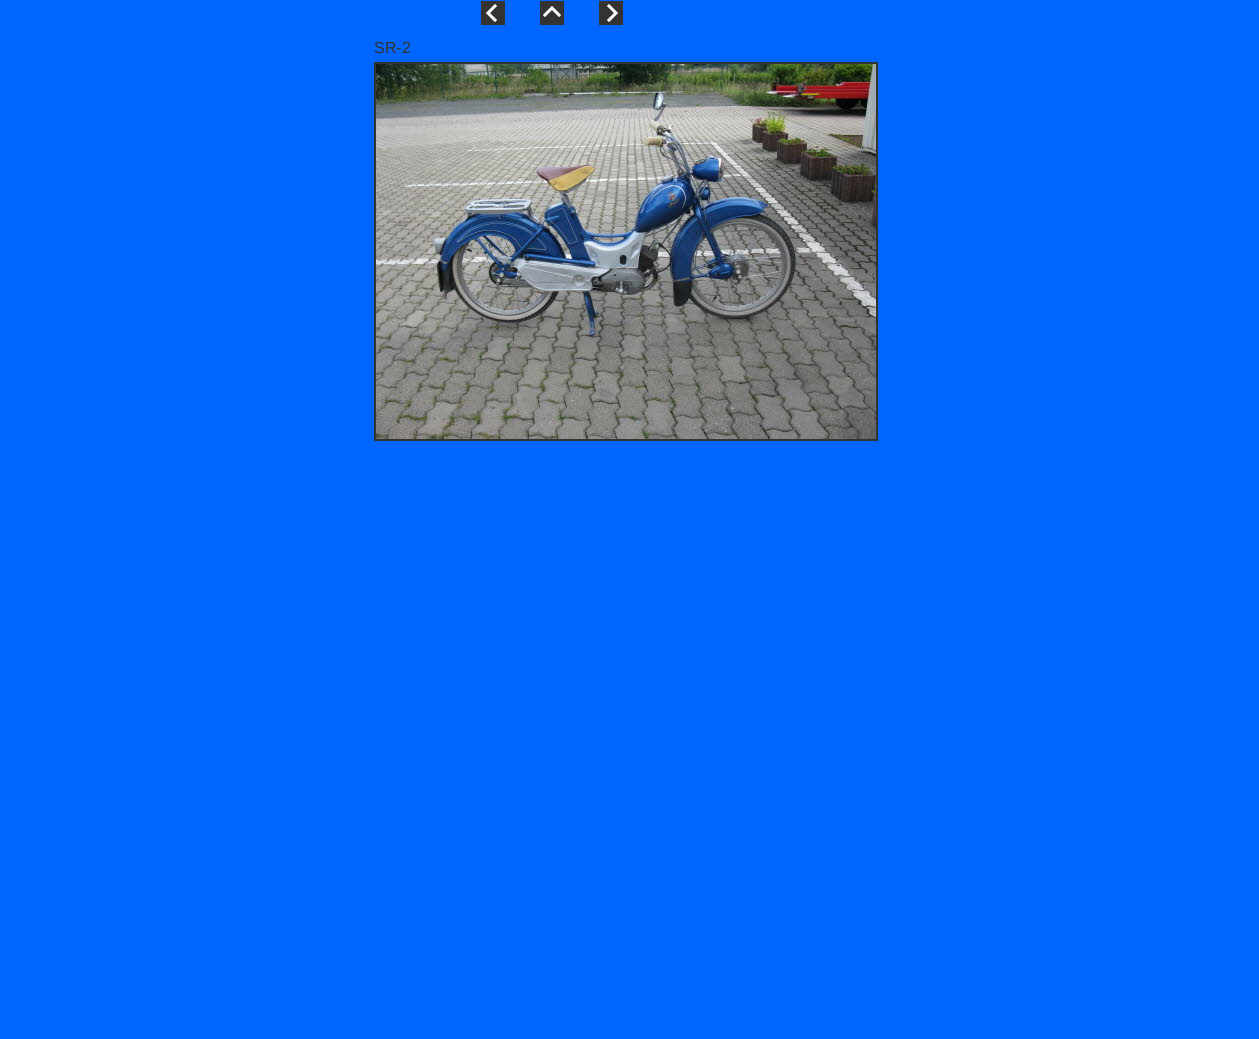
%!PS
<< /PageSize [1259 1039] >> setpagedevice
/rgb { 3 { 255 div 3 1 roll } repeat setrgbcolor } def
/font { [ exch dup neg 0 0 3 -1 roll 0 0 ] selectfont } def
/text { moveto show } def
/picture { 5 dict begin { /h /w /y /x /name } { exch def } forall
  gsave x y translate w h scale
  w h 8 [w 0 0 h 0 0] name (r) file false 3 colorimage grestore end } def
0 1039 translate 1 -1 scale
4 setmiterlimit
0 102 255 rgb
0 0 1259 1039 rectfill
(img_01.rgb) 481 1 24 24 picture
(img_02.rgb) 540 1 24 24 picture
(img_03.rgb) 599 1 24 24 picture
51 51 51 rgb
374 62 504 2 rectfill
876 62 2 379 rectfill
374 439 504 2 rectfill
374 62 2 379 rectfill
(img_04.rgb) 376 64 500 375 picture
/LiberationSans-Regular 16 font
(SR-2) 374 53 text
showpage
